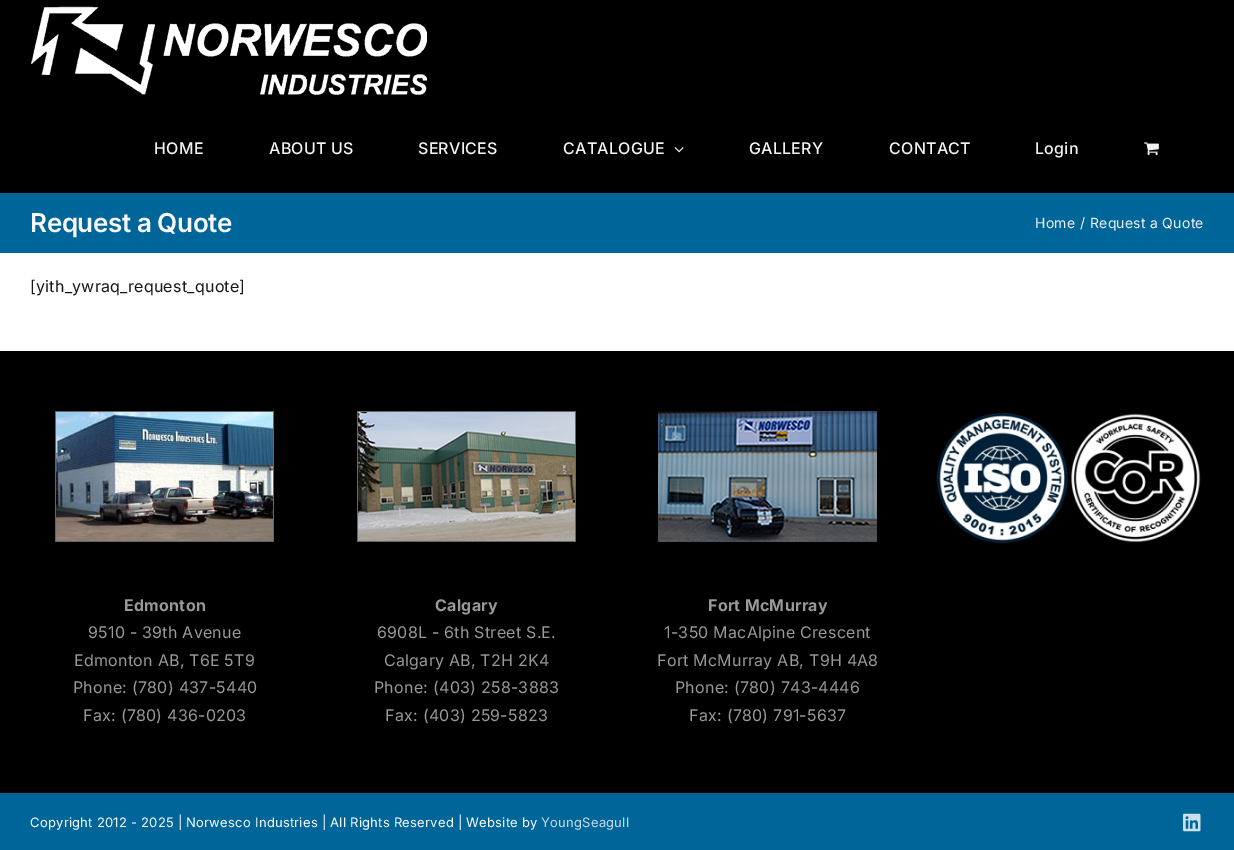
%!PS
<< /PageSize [1234 850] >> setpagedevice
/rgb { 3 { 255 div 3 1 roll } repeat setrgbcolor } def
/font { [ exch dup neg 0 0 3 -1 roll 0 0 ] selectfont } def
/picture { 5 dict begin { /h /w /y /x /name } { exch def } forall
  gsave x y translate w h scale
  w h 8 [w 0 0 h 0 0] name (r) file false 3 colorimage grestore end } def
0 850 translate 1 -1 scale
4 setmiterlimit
255 255 255 rgb
0 0 1234 850 rectfill
0 0 0 rgb
0 0 1234 193 rectfill
(img_01.rgb) 31 6 396 90 picture
(img_02.rgb) 674 147 10 6 picture
(img_03.rgb) 1144 142 15 13 picture
0 101 153 rgb
0 193 1234 60 rectfill
0 0 0 rgb
0 351 1234 442 rectfill
(img_04.rgb) 936 412 265 132 picture
(img_05.rgb) 55 411 219 131 picture
(img_06.rgb) 357 411 219 131 picture
(img_07.rgb) 658 411 219 131 picture
0 101 153 rgb
0 793 1234 57 rectfill
(img_08.rgb) 1183 813 18 19 picture
/Inter-Medium 16 font
242 243 245 rgb
154 154 moveto 0.25 0 (HOME) ashow
269 154 moveto 0.25 0 (ABOUT US) ashow
418 154 moveto 0.25 0 (SERVICES) ashow
563 154 moveto 0.25 0 (CATALOGUE) ashow
749 154 moveto 0.25 0 (GALLERY) ashow
889 154 moveto 0.25 0 (CONTACT) ashow
1035 154 moveto 0.25 0 (Login) ashow
/Inter-SemiBold 26 font
249 249 251 rgb
30 232 moveto -0.4 0 (Request a Quote) ashow
/Inter-Regular 14 font
242 243 245 rgb
1035 228 moveto 0.25 0 (Home) ashow
1080 228 moveto 0.25 0 (/) ashow
1090 228 moveto 0.25 0 (Request a Quote) ashow
/Inter-Regular 16 font
20 22 23 rgb
30 292 moveto 0.25 0 ([yith_ywraq_request_quote]) ashow
/Inter-Bold 16 font
153 153 153 rgb
124 611 moveto 0.25 0 (Edmonton) ashow
/Inter-Regular 16 font
88 638 moveto 0.25 0 (9510 - 39th Avenue) ashow
74 666 moveto 0.25 0 (Edmonton AB, T6E 5T9) ashow
73 693 moveto 0.25 0 (Phone: \(780\) 437-5440) ashow
83 721 moveto 0.25 0 (Fax: \(780\) 436-0203) ashow
/Inter-Bold 16 font
435 611 moveto 0.25 0 (Calgary) ashow
/Inter-Regular 16 font
377 638 moveto 0.25 0 (6908L - 6th Street S.E.) ashow
384 666 moveto 0.25 0 (Calgary AB, T2H 2K4) ashow
374 693 moveto 0.25 0 (Phone: \(403\) 258-3883) ashow
385 721 moveto 0.25 0 (Fax: \(403\) 259-5823) ashow
/Inter-Bold 16 font
708 611 moveto 0.25 0 (Fort McMurray) ashow
/Inter-Regular 16 font
664 638 moveto 0.25 0 (1-350 MacAlpine Crescent) ashow
657 666 moveto 0.25 0 (Fort McMurray AB, T9H 4A8) ashow
675 693 moveto 0.25 0 (Phone: \(780\) 743-4446) ashow
689 721 moveto 0.25 0 (Fax: \(780\) 791-5637) ashow
/Inter-Regular 13 font
255 255 255 rgb
30 827 moveto 0.25 0 (Copyright 2012 - 2025 | Norwesco Industries | All Rights Reserved | Website by) ashow
199 219 231 rgb
541 827 moveto 0.25 0 (YoungSeagull) ashow
showpage
